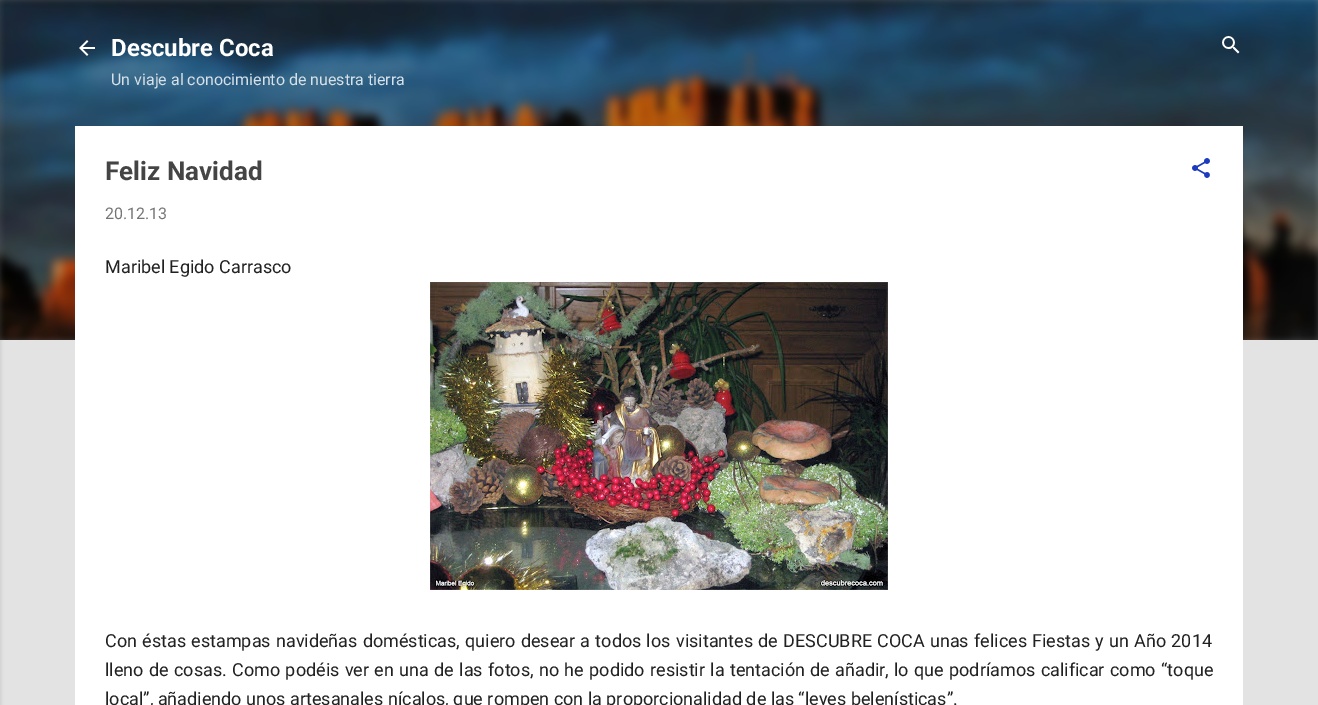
%!PS
<< /PageSize [1318 705] /PageUsesTransparency true >> setpagedevice
/rgb { 3 { 255 div 3 1 roll } repeat setrgbcolor } def
/font { [ exch dup neg 0 0 3 -1 roll 0 0 ] selectfont } def
/text { moveto show } def
/alpha { dup .setfillconstantalpha .setstrokeconstantalpha } def
/roundrect { 5 dict begin { /r /h /w /y /x } { exch def } forall
  x r add y moveto x w add y 2 copy h add r arct x w add y h add x 1 index r arct
  x y h add x y r arct x y 2 copy exch w add exch r arct closepath end } def
/shadow { 12 dict begin { /a /b /q /h /w /y /x } { exch def } forall gsave /was 0 def
  9 -2 -9 { dup b mul 4 div /e exch def 1 sub .425 mul 2.718 exch exp 1 add a .99 .min exch div /now exch def
    1 1 now sub 1 was sub div sub alpha /was now def
    w h .min e 2 mul add 0 gt { x e sub y e sub w e 2 mul add h e 2 mul add
      q e add b .6 mul add w h .min 2 div e add .min 0 .max roundrect fill } if } for grestore end } def
/picture { 5 dict begin { /h /w /y /x /name } { exch def } forall
  gsave x y translate w h scale
  w h 8 [w 0 0 h 0 0] name (r) file false 3 colorimage grestore end } def
0 .pushpdf14devicefilter
0 705 translate 1 -1 scale
4 setmiterlimit
227 227 227 rgb
0 0 1318 705 rectfill
(img_01.rgb) 0 0 1318 340 picture
0 0 0 rgb
-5 1 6 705 0 1.5 0.1 shadow
(img_02.rgb) 79 40 16 16 picture
(img_03.rgb) 1222 36 18 18 picture
255 255 255 rgb
75 126 1168 579 rectfill
(img_04.rgb) 1192 158 18 20 picture
(img_05.rgb) 430 282 458 308 picture
/Roboto-Bold 24 font
(Descubre Coca) 111 56 text
/Roboto-Regular 16 font
214 224 231 rgb
(Un viaje al conocimiento de nuestra tierra) 111 85 text
/Roboto-Bold 26 font
68 68 68 rgb
(Feliz Navidad) 105 180 text
/Roboto-Regular 16 font
117 117 117 rgb
(20.12.13) 105 219 text
/Roboto-Regular 18 font
33 33 33 rgb
(Maribel Egido Carrasco) 105 273 text
105 647 moveto 0.75 0 32 (Con éstas estampas navideñas domésticas, quiero desear a todos los) widthshow
676 647 moveto 0.75 0 32 (visitantes de DESCUBRE COCA unas felices Fiestas y un Año 2014) widthshow
105 676 moveto 0.9 0 32 (lleno de cosas. Como podéis ver en una de las fotos, no he podido resistir la tentación de) widthshow
835 676 moveto 0.9 0 32 (añadir, lo que podríamos calificar como “toque) widthshow
(local”, añadiendo unos artesanales nícalos, que rompen con la proporcionalidad de las “leyes belenísticas”.) 105 705 text
.poppdf14devicefilter showpage
